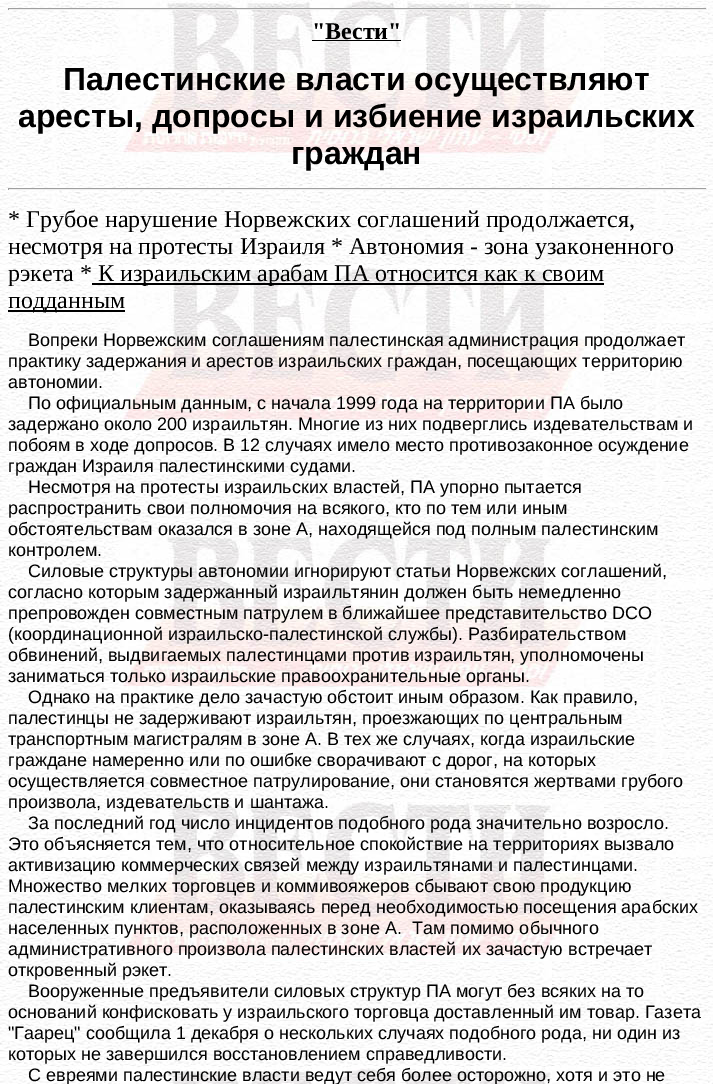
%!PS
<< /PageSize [713 1084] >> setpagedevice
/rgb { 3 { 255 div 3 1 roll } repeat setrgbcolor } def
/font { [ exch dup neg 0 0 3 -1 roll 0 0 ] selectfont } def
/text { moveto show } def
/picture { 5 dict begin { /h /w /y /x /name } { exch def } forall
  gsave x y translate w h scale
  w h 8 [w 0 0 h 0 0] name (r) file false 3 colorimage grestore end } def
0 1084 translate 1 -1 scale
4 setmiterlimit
255 255 255 rgb
0 0 713 1084 rectfill
(img_01.rgb) 0 0 713 1084 picture
159 159 159 rgb
8 8 699 1 rectfill
238 238 238 rgb
706 8 1 2 rectfill
8 9 699 1 rectfill
159 159 159 rgb
8 8 1 2 rectfill
0 0 0 rgb
312 40 89 1 rectfill
159 159 159 rgb
8 188 699 1 rectfill
238 238 238 rgb
706 188 1 2 rectfill
8 189 699 1 rectfill
159 159 159 rgb
8 188 1 2 rectfill
0 0 0 rgb
92 283 512 2 rectfill
8 310 117 2 rectfill
/LiberationSerif-Bold 24 font
("Вести") 312 39 text
/LiberationSans-Bold 32 font
(Палестинские власти осуществляют) 63 90 text
(аресты, допросы и избиение израильских) 18 127 text
(граждан) 291 164 text
/LiberationSerif-Regular 24 font
(* Грубое нарушение Норвежских соглашений продолжается,) 8 227 text
(несмотря на протесты Израиля * Автономия - зона узаконенного) 8 254 text
(рэкета *) 8 281 text
(К израильским арабам ПА относится как к своим) 98 281 text
(подданным) 8 308 text
/LiberationSans-Regular 18 font
(Вопреки Норвежским соглашениям палестинская администрация продолжает) 28 346 text
(практику задержания и арестов израильских граждан, посещающих территорию) 8 367 text
(автономии.) 8 388 text
(По официальным данным, с начала 1999 года на территории ПА было) 28 409 text
(задержано около 200 израильтян. Многие из них подверглись издевательствам и) 8 430 text
(побоям в ходе допросов. В 12 случаях имело место противозаконное осуждение) 8 451 text
(граждан Израиля палестинскими судами.) 8 472 text
(Несмотря на протесты израильских властей, ПА упорно пытается) 28 493 text
(распространить свои полномочия на всякого, кто по тем или иным) 8 514 text
(обстоятельствам оказался в зоне А, находящейся под полным палестинским) 8 535 text
(контролем.) 8 556 text
(Силовые структуры автономии игнорируют статьи Норвежских соглашений,) 28 577 text
(согласно которым задержанный израильтянин должен быть немедленно) 8 598 text
(препровожден совместным патрулем в ближайшее представительство DCO) 8 619 text
(\(координационной израильско-палестинской службы\). Разбирательством) 8 640 text
(обвинений, выдвигаемых палестинцами против израильтян, уполномочены) 8 661 text
(заниматься только израильские правоохранительные органы.) 8 682 text
(Однако на практике дело зачастую обстоит иным образом. Как правило,) 28 703 text
(палестинцы не задерживают израильтян, проезжающих по центральным) 8 724 text
(транспортным магистралям в зоне А. В тех же случаях, когда израильские) 8 745 text
(граждане намеренно или по ошибке сворачивают с дорог, на которых) 8 766 text
(осуществляется совместное патрулирование, они становятся жертвами грубого) 8 787 text
(произвола, издевательств и шантажа.) 8 808 text
(За последний год число инцидентов подобного рода значительно возросло.) 28 829 text
(Это объясняется тем, что относительное спокойствие на территориях вызвало) 8 850 text
(активизацию коммерческих связей между израильтянами и палестинцами.) 8 871 text
(Множество мелких торговцев и коммивояжеров сбывают свою продукцию) 8 892 text
(палестинским клиентам, оказываясь перед необходимостью посещения арабских) 8 913 text
(населенных пунктов, расположенных в зоне А.  Там помимо обычного) 8 934 text
(административного произвола палестинских властей их зачастую встречает) 8 955 text
(откровенный рэкет.) 8 976 text
(Вооруженные предъявители силовых структур ПА могут без всяких на то) 28 997 text
(оснований конфисковать у израильского торговца доставленный им товар. Газета) 8 1018 text
("Гаарец" сообщила 1 декабря о нескольких случаях подобного рода, ни один из) 8 1039 text
(которых не завершился восстановлением справедливости.) 8 1060 text
(С евреями палестинские власти ведут себя более осторожно, хотя и это не) 28 1081 text
showpage
